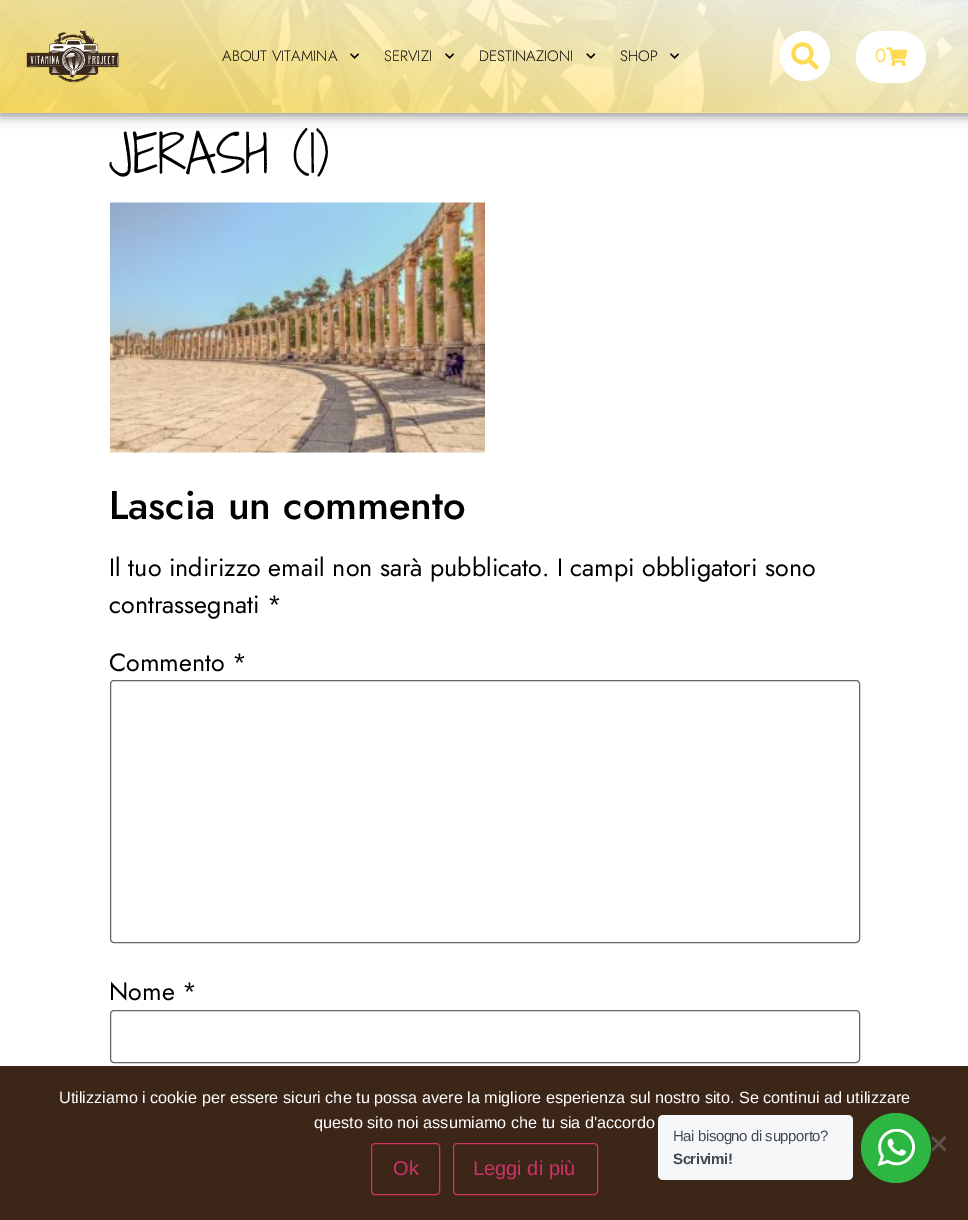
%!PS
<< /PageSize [968 1220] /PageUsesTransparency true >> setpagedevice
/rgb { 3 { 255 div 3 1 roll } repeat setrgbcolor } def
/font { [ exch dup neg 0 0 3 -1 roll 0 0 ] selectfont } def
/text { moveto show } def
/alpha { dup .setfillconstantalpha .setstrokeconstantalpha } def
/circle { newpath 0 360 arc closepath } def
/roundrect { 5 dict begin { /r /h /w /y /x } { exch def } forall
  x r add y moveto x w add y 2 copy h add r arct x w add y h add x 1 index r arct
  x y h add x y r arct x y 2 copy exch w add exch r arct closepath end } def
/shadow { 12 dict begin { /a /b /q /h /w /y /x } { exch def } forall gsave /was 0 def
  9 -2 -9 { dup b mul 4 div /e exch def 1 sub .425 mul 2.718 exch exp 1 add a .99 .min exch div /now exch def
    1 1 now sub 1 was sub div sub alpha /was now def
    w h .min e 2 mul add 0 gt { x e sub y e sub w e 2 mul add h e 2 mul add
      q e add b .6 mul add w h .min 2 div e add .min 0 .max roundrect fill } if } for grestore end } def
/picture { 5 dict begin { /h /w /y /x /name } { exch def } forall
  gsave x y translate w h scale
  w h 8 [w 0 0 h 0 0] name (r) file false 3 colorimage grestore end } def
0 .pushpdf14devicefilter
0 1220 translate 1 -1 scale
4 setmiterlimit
255 255 255 rgb
0 0 968 1220 rectfill
0 0 0 rgb
0 3 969 112 0 6 0.5 shadow
(img_01.rgb) 0 0 968 113 picture
0.9 alpha
gsave 0 0 moveto 968 0 rlineto 0 113 rlineto -968 0 rlineto closepath clip newpath
<< /ShadingType 2 /ColorSpace /DeviceRGB /Coords [464 186 505 -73] /Extend [true true] /Function << /FunctionType 2 /Domain [0 1] /C0 [1 0.855 0.333] /C1 [1 1 1] /N 1 >> >> shfill grestore
1 alpha
(img_02.rgb) 26 30 93 53 picture
(img_03.rgb) 350 53 9 6 picture
(img_04.rgb) 445 53 9 6 picture
(img_05.rgb) 586 53 10 6 picture
(img_06.rgb) 670 53 9 6 picture
255 255 255 rgb
805 56 25 circle fill
(img_07.rgb) 791 42 28 28 picture
856 31 70 52 26 roundrect fill
(img_08.rgb) 886 47 22 20 picture
(img_09.rgb) 110 202 375 251 picture
102 102 102 rgb
110.5 680.5 749 262 3.5 roundrect stroke
110.5 1010.5 749 52 3.5 roundrect stroke
60 38 24 rgb
0 1066 968 154 rectfill
94 83 76 rgb
944.5 1136 moveto 2 2 rlineto -13.5 13.5 rlineto -2 -2 rlineto closepath fill
931 1138 moveto 2 -2 rlineto 13.5 13.5 rlineto -2 2 rlineto closepath fill
204 51 102 rgb
371.5 1143.5 68 51 3.5 roundrect stroke
453.5 1143.5 144 51 3.5 roundrect stroke
245 247 249 rgb
658 1115 195 65 5 roundrect fill
45 183 66 rgb
896 1148 35 circle fill
(img_10.rgb) 878 1129 37 37 picture
/Jost-Light 15 font
0 0 0 rgb
(ABOUT VITAMINA) 222 61 text
(SERVIZI) 384 61 text
(DESTINAZIONI) 479 61 text
(SHOP) 620 61 text
/Jost-Regular 19 font
255 218 85 rgb
(0) 875 62 text
/ShadowsIntoLightTwo-Light 50 font
0 0 0 rgb
(JERASH \(1\)) 109 173 text
/Jost-Medium 40 font
(Lascia un commento) 109 519 text
/Jost-Regular 25 font
(Il tuo indirizzo email non sarà pubblicato. I campi obbligatori sono) 109 576 text
(contrassegnati *) 109 613 text
(Commento *) 109 671 text
(Nome *) 109 1000 text
/LiberationSans-Regular 16.25 font
255 255 255 rgb
(Utilizziamo i cookie per essere sicuri che tu possa avere la migliore esperienza sul nostro sito. Se continui ad utilizzare) 59 1103 text
(questo sito noi assumiamo che tu sia d'accordo) 314 1128 text
/LiberationSans-Regular 20 font
204 51 102 rgb
(Ok) 393 1175 text
(Leggi di più) 473 1175 text
/LiberationSans-Regular 15 font
67 71 78 rgb
673 1141 moveto -0.45 0 (Hai bisogno di supporto?) ashow
/LiberationSans-Bold 15 font
673 1164 moveto -0.45 0 (Scrivimi!) ashow
.poppdf14devicefilter showpage
